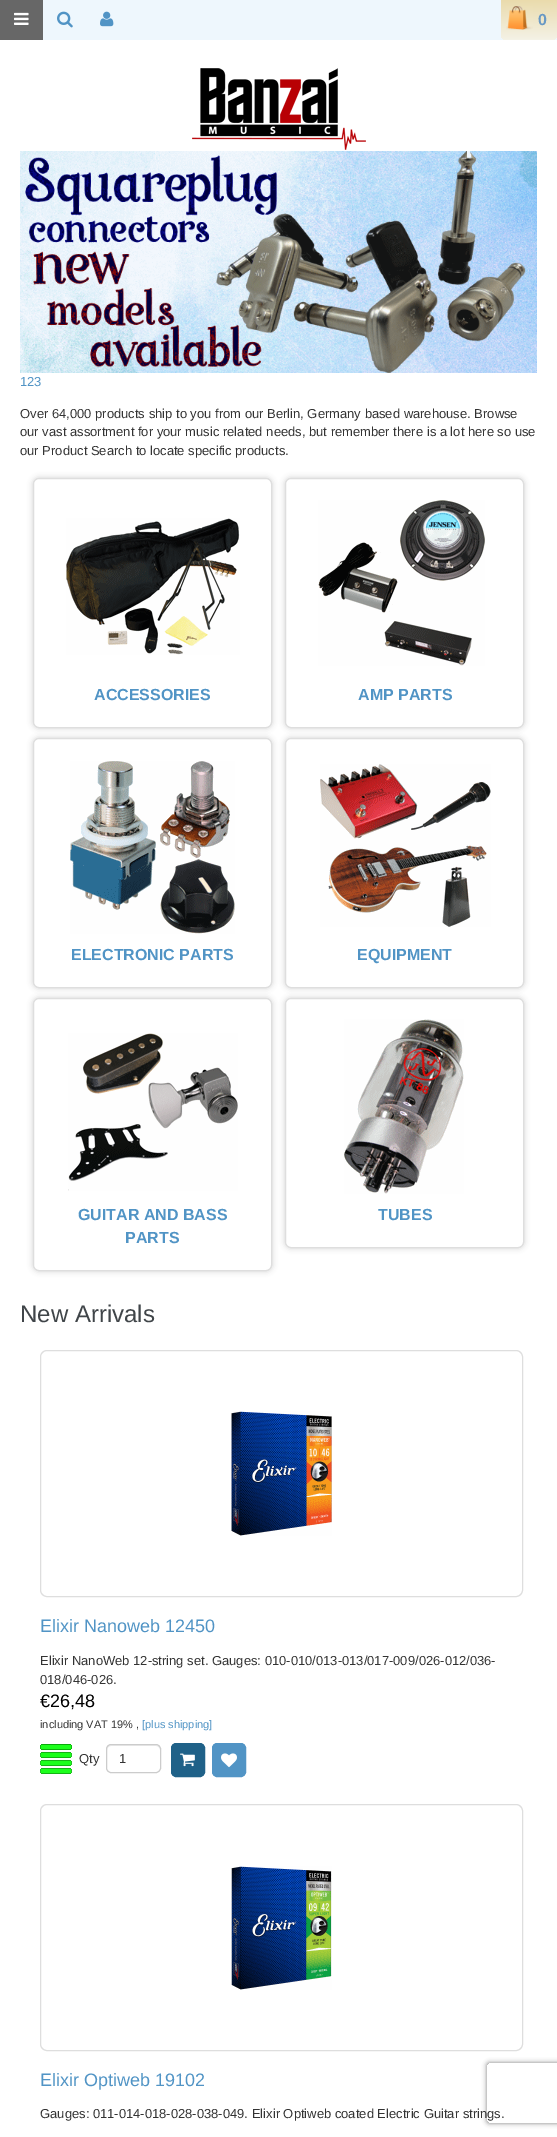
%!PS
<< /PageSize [557 2137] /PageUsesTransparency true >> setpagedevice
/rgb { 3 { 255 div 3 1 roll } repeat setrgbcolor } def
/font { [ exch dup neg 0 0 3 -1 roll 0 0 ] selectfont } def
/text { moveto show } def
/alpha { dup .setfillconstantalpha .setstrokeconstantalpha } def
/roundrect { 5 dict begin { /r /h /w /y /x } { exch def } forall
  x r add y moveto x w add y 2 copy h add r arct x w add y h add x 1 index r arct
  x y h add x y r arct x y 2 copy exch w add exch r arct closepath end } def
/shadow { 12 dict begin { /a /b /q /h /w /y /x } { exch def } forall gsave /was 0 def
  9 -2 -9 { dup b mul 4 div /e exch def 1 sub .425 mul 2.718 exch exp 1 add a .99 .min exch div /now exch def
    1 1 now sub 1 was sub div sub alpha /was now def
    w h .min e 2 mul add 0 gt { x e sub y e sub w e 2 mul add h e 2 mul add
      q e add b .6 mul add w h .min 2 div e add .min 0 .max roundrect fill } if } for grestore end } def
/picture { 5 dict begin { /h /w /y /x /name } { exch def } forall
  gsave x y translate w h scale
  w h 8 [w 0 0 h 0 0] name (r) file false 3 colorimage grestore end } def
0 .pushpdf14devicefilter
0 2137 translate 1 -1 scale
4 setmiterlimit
255 255 255 rgb
0 0 557 2137 rectfill
238 247 253 rgb
43 0 514 40 rectfill
103 103 103 rgb
0 0 43 40 rectfill
(img_01.rgb) 14 12 15 13 picture
(img_02.rgb) 57 11 16 17 picture
(img_03.rgb) 100 11 14 16 picture
gsave 501 0 moveto 56 0 rlineto 0 34 rlineto 0 3.5 -2.5 6 -6 6 rcurveto -44 0 rlineto -3.5 0 -6 -2.5 -6 -6 rcurveto closepath clip newpath
<< /ShadingType 2 /ColorSpace /DeviceRGB /Coords [529 0 529 40] /Extend [true true] /Function << /FunctionType 2 /Domain [0 1] /C0 [0.918 0.859 0.675] /C1 [0.957 0.949 0.902] /N 1 >> >> shfill grestore
(img_04.rgb) 506 6 27 24 picture
(img_05.rgb) 192 68 174 82 picture
(img_06.rgb) 20 151 517 222 picture
gsave
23 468 moveto 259 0 rlineto 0 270 rlineto -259 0 rlineto closepath 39 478 moveto 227 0 rlineto 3.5 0 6 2.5 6 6 rcurveto 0 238 rlineto 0 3.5 -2.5 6 -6 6 rcurveto -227 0 rlineto -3.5 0 -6 -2.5 -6 -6 rcurveto 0 -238 rlineto 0 -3.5 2.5 -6 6 -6 rcurveto closepath eoclip newpath
204 204 204 rgb
33 478 239 250 6 3 1 shadow
grestore
222 222 222 rgb
33.5 478.5 238 249 5.5 roundrect stroke
(img_07.rgb) 66 518 174 137 picture
gsave
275 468 moveto 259 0 rlineto 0 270 rlineto -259 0 rlineto closepath 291 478 moveto 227 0 rlineto 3.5 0 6 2.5 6 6 rcurveto 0 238 rlineto 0 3.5 -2.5 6 -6 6 rcurveto -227 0 rlineto -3.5 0 -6 -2.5 -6 -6 rcurveto 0 -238 rlineto 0 -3.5 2.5 -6 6 -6 rcurveto closepath eoclip newpath
204 204 204 rgb
285 478 239 250 6 3 1 shadow
grestore
285.5 478.5 238 249 5.5 roundrect stroke
(img_08.rgb) 318 500 167 166 picture
gsave
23 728 moveto 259 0 rlineto 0 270 rlineto -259 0 rlineto closepath 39 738 moveto 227 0 rlineto 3.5 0 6 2.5 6 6 rcurveto 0 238 rlineto 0 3.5 -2.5 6 -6 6 rcurveto -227 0 rlineto -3.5 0 -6 -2.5 -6 -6 rcurveto 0 -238 rlineto 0 -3.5 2.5 -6 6 -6 rcurveto closepath eoclip newpath
204 204 204 rgb
33 738 239 250 6 3 1 shadow
grestore
33.5 738.5 238 249 5.5 roundrect stroke
(img_09.rgb) 70 761 165 173 picture
gsave
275 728 moveto 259 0 rlineto 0 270 rlineto -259 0 rlineto closepath 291 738 moveto 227 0 rlineto 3.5 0 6 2.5 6 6 rcurveto 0 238 rlineto 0 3.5 -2.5 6 -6 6 rcurveto -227 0 rlineto -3.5 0 -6 -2.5 -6 -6 rcurveto 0 -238 rlineto 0 -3.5 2.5 -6 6 -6 rcurveto closepath eoclip newpath
204 204 204 rgb
285 738 239 250 6 3 1 shadow
grestore
285.5 738.5 238 249 5.5 roundrect stroke
(img_10.rgb) 320 764 171 163 picture
gsave
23 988 moveto 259 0 rlineto 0 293 rlineto -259 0 rlineto closepath 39 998 moveto 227 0 rlineto 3.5 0 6 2.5 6 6 rcurveto 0 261 rlineto 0 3.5 -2.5 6 -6 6 rcurveto -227 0 rlineto -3.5 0 -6 -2.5 -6 -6 rcurveto 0 -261 rlineto 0 -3.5 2.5 -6 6 -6 rcurveto closepath eoclip newpath
204 204 204 rgb
33 998 239 273 6 3 1 shadow
grestore
33.5 998.5 238 272 5.5 roundrect stroke
(img_11.rgb) 68 1033 170 158 picture
gsave
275 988 moveto 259 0 rlineto 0 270 rlineto -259 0 rlineto closepath 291 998 moveto 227 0 rlineto 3.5 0 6 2.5 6 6 rcurveto 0 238 rlineto 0 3.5 -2.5 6 -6 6 rcurveto -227 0 rlineto -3.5 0 -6 -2.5 -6 -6 rcurveto 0 -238 rlineto 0 -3.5 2.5 -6 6 -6 rcurveto closepath eoclip newpath
204 204 204 rgb
285 998 239 250 6 3 1 shadow
grestore
285.5 998.5 238 249 5.5 roundrect stroke
(img_12.rgb) 344 1019 120 175 picture
40.5 1350.5 482 246 6.5 roundrect stroke
(img_13.rgb) 231 1411 101 125 picture
(img_14.rgb) 40 1744 32 30 picture
236 236 236 rgb
111 1746 moveto 45 0 rlineto 2 0 4 2 4 4 rcurveto 0 -7 -7 -5 -12 -5 rcurveto -30 0 rlineto -4 0 -11 -2 -11 5 rcurveto 0 -2 2 -4 4 -4 rcurveto closepath fill
204 204 204 rgb
106.5 1744.5 54 28 4.5 roundrect stroke
31 97 136 rgb
171.5 1743.5 33 33 4.5 roundrect gsave fill grestore
stroke
(img_15.rgb) 180 1753 15 14 picture
81 148 197 rgb
212.5 1743.5 33 33 4.5 roundrect gsave fill grestore
stroke
(img_16.rgb) 221 1753 16 15 picture
222 222 222 rgb
40.5 1804.5 482 246 6.5 roundrect stroke
(img_17.rgb) 231 1866 101 124 picture
gsave
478 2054 moveto 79 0 rlineto 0 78 rlineto -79 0 rlineto closepath 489 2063 moveto 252 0 rlineto 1 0 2 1 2 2 rcurveto 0 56 rlineto 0 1 -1 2 -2 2 rcurveto -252 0 rlineto -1 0 -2 -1 -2 -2 rcurveto 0 -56 rlineto 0 -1 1 -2 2 -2 rcurveto closepath eoclip newpath
128 128 128 rgb
487 2063 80 60 2 2.5 1 shadow
grestore
/LiberationSans-Bold 16 font
105 153 196 rgb
(0) 538 25 text
/LiberationSans-Regular 13 font
81 148 197 rgb
(123) 20 386 text
51 51 51 rgb
(Over 64,000 products ship to you from our Berlin, Germany based warehouse. Browse) 20 418 text
(our vast assortment for your music related needs, but remember there is a lot here so use) 20 436 text
(our Product Search to locate specific products.) 20 455 text
/LiberationSans-Bold 16 font
81 148 197 rgb
(ACCESSORIES) 94 700 text
(AMP PARTS) 358 700 text
(ELECTRONIC PARTS) 71 960 text
(EQUIPMENT) 357 960 text
(GUITAR AND BASS) 78 1220 text
(PARTS) 125 1243 text
(TUBES) 378 1220 text
/LiberationSans-Regular 24 font
64 69 73 rgb
(New Arrivals) 20 1322 text
/LiberationSans-Regular 18 font
81 148 197 rgb
(Elixir Nanoweb 12450) 40 1632 text
/LiberationSans-Regular 13 font
51 51 51 rgb
(Elixir NanoWeb 12-string set. Gauges: 010-010/013-013/017-009/026-012/036-) 40 1665 text
(018/046-026.) 40 1684 text
/LiberationSans-Regular 18 font
0 0 0 rgb
(€26,48) 40 1707 text
/LiberationSans-Regular 11 font
51 51 51 rgb
(including VAT 19% ,) 40 1728 text
81 148 197 rgb
([plus shipping]) 142 1728 text
/LiberationSans-Regular 13 font
51 51 51 rgb
(Qty) 79 1763 text
(1) 119 1763 text
/LiberationSans-Regular 18 font
81 148 197 rgb
(Elixir Optiweb 19102) 40 2086 text
/LiberationSans-Regular 13 font
51 51 51 rgb
(Gauges: 011-014-018-028-038-049. Elixir Optiweb coated Electric Guitar strings.) 40 2118 text
.poppdf14devicefilter showpage
